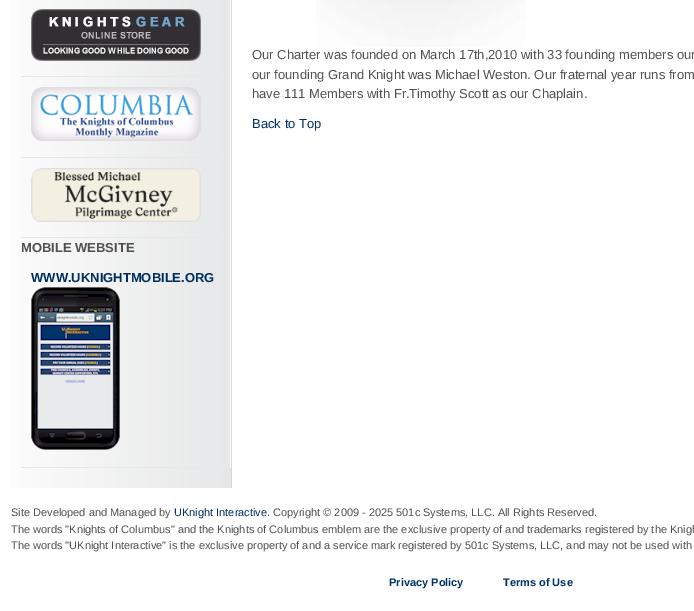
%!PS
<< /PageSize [694 611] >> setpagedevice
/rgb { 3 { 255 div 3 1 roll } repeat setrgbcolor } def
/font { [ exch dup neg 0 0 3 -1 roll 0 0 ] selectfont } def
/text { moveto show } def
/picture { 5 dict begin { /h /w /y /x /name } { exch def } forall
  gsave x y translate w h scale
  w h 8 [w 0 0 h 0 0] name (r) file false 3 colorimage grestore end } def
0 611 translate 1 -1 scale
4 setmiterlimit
255 255 255 rgb
0 0 694 611 rectfill
(img_01.rgb) 316 0 209 47 picture
gsave 11 0 moveto 220 0 rlineto 0 488 rlineto -220 0 rlineto closepath clip newpath
<< /ShadingType 2 /ColorSpace /DeviceRGB /Coords [11 -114 231 -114] /Extend [true true] /Function << /FunctionType 2 /Domain [0 1] /C0 [0.988 0.988 0.988] /C1 [0.902 0.906 0.91] /N 1 >> >> shfill grestore
214 214 214 rgb
231 0 1 488 rectfill
255 255 255 rgb
230 0 1 468 rectfill
231 231 231 rgb
21 76 199 1 rectfill
(img_02.rgb) 31 9 170 52 picture
21 157 199 1 rectfill
(img_03.rgb) 31 87 170 54 picture
21 237 199 1 rectfill
(img_04.rgb) 31 168 170 54 picture
21 467 199 1 rectfill
(img_05.rgb) 31 287 89 163 picture
/LiberationSans-Regular 13 font
81 81 81 rgb
(Our Charter was founded on March 17th,2010 with 33 founding members our) 252 59 text
(our founding Grand Knight was Michael Weston. Our fraternal year runs from) 252 79 text
(have 111 Members with Fr.Timothy Scott as our Chaplain.) 252 98 text
0 48 101 rgb
(Back to Top) 252 128 text
/LiberationSans-Bold 13 font
81 81 81 rgb
(MOBILE WEBSITE) 21 252 text
0 46 94 rgb
(WWW.UKNIGHTMOBILE.ORG) 31 282 text
/LiberationSans-Regular 11 font
81 81 81 rgb
(Site Developed and Managed by) 11 516 text
0 48 101 rgb
(UKnight Interactive) 174 516 text
81 81 81 rgb
(. Copyright © 2009 - 2025 501c Systems, LLC. All Rights Reserved.) 267 516 text
(The words "Knights of Columbus" and the Knights of Columbus emblem are the exclusive property of and trademarks registered by the Knigh) 11 533 text
(The words "UKnight Interactive" is the exclusive property of and a service mark registered by 501c Systems, LLC, and may not be used with) 11 549 text
/LiberationSans-Bold 11 font
0 48 101 rgb
(Privacy Policy) 389 586 text
(Terms of Use) 503 586 text
showpage
